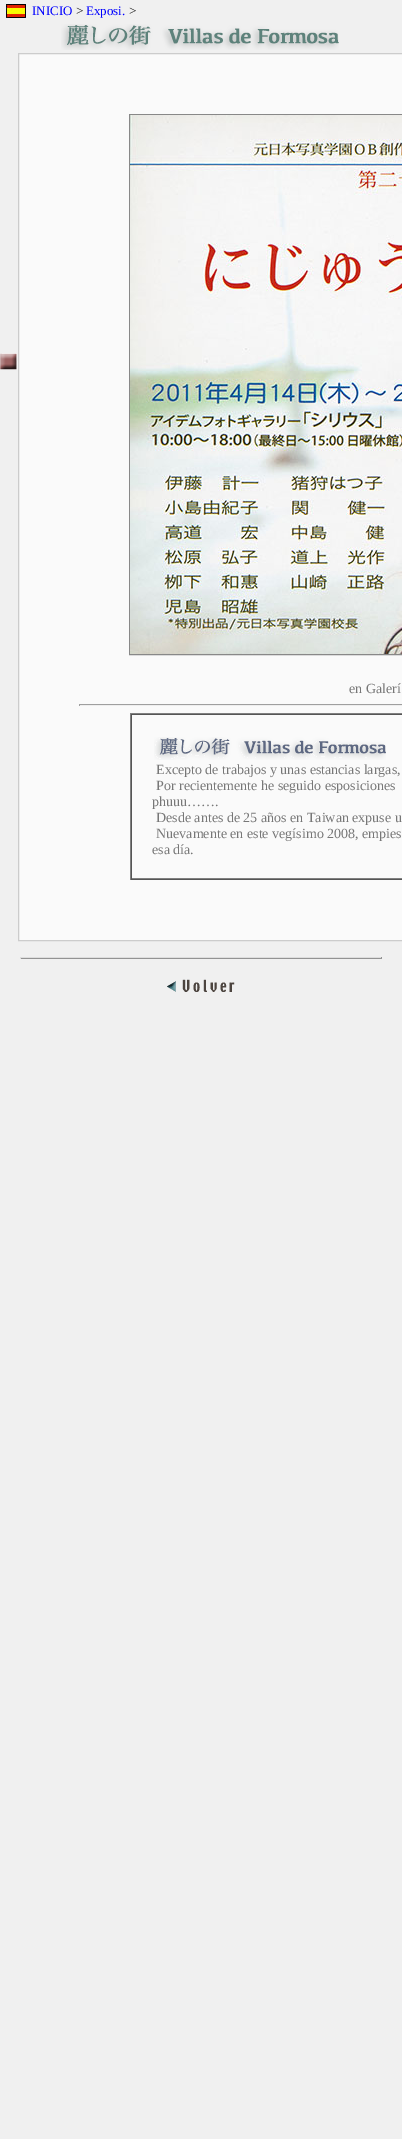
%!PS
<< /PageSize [402 2139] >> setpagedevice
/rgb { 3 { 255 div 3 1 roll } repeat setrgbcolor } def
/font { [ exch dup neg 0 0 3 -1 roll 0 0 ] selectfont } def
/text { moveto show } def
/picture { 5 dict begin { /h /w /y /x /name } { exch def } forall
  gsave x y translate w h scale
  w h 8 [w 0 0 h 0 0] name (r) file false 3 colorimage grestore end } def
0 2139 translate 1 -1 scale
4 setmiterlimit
240 240 240 rgb
0 0 402 2139 rectfill
(img_01.rgb) 6 4 20 14 picture
(img_02.rgb) 61 24 278 26 picture
(img_03.rgb) 0 353 18 17 picture
250 250 250 rgb
18.5 53.5 moveto 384 0 rlineto 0 887 rlineto -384 0 rlineto closepath gsave fill grestore
204 204 204 rgb
stroke
136 136 136 rgb
129.5 114.5 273 540 rectstroke
(img_04.rgb) 130 115 272 539 picture
159 159 159 rgb
79 704 323 1 rectfill
238 238 238 rgb
79 705 323 1 rectfill
159 159 159 rgb
79 704 1 2 rectfill
128 128 128 rgb
130 713 272 1 rectfill
85 85 85 rgb
130 879 272 1 rectfill
128 128 128 rgb
130 713 1 167 rectfill
85 85 85 rgb
131 714 271 1 rectfill
128 128 128 rgb
131 878 271 1 rectfill
85 85 85 rgb
131 714 1 165 rectfill
(img_05.rgb) 154 737 232 23 picture
221 221 221 rgb
20 957 362 1 rectfill
147 147 147 rgb
381 957 1 2 rectfill
20 958 362 1 rectfill
221 221 221 rgb
20 957 1 2 rectfill
(img_06.rgb) 167 979 68 13 picture
/LiberationSerif-Regular 13 font
0 0 255 rgb
(INICIO) 32 15 text
17 17 17 rgb
(>) 76 15 text
0 0 255 rgb
(Exposi.) 86 15 text
17 17 17 rgb
(>) 129 15 text
/LiberationSerif-Regular 14 font
119 119 119 rgb
(en Galerí) 349 693 text
(Excepto de trabajos y unas estancias largas,) 156 774 text
(Por recientemente he seguido esposiciones) 156 790 text
(phuuu…….) 152 806 text
(Desde antes de 25 años en Taiwan expuse u) 156 822 text
(Nuevamente en este vegísimo 2008, empies) 156 838 text
(esa día.) 152 854 text
showpage
